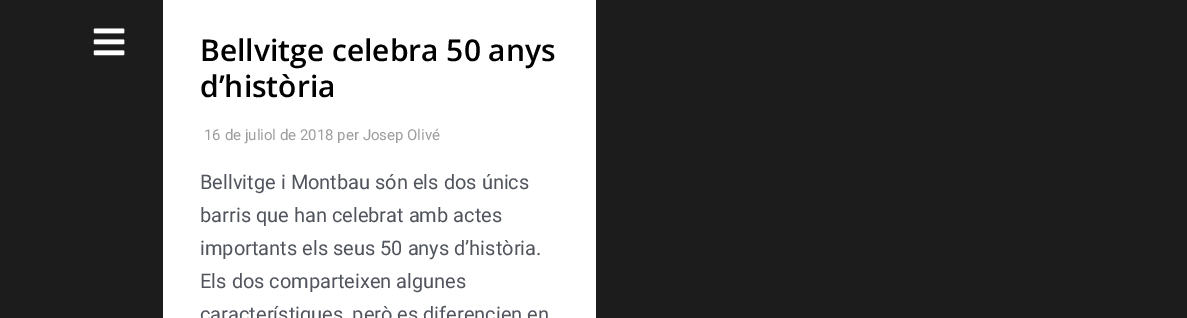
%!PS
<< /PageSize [1187 318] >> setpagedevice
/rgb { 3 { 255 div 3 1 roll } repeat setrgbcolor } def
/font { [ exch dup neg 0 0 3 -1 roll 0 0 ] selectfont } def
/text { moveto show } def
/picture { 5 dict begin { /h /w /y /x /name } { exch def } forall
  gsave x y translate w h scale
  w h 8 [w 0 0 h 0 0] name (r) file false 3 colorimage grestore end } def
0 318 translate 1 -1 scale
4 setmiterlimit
28 28 28 rgb
0 0 1187 318 rectfill
(img_01.rgb) 93 28 32 28 picture
255 255 255 rgb
163 0 433 318 rectfill
/OpenSans-SemiBold 30 font
0 0 0 rgb
(Bellvitge celebra 50 anys) 200 61 text
(d’història) 200 97 text
/Roboto-Regular 15 font
157 157 157 rgb
(16 de juliol de 2018 per Josep Olivé) 204 140 text
/Roboto-Regular 20 font
80 84 92 rgb
(Bellvitge i Montbau són els dos únics) 200 189 text
(barris que han celebrat amb actes) 200 222 text
(importants els seus 50 anys d’història.) 200 255 text
(Els dos comparteixen algunes) 200 288 text
(característiques, però es diferencien en) 200 321 text
showpage
